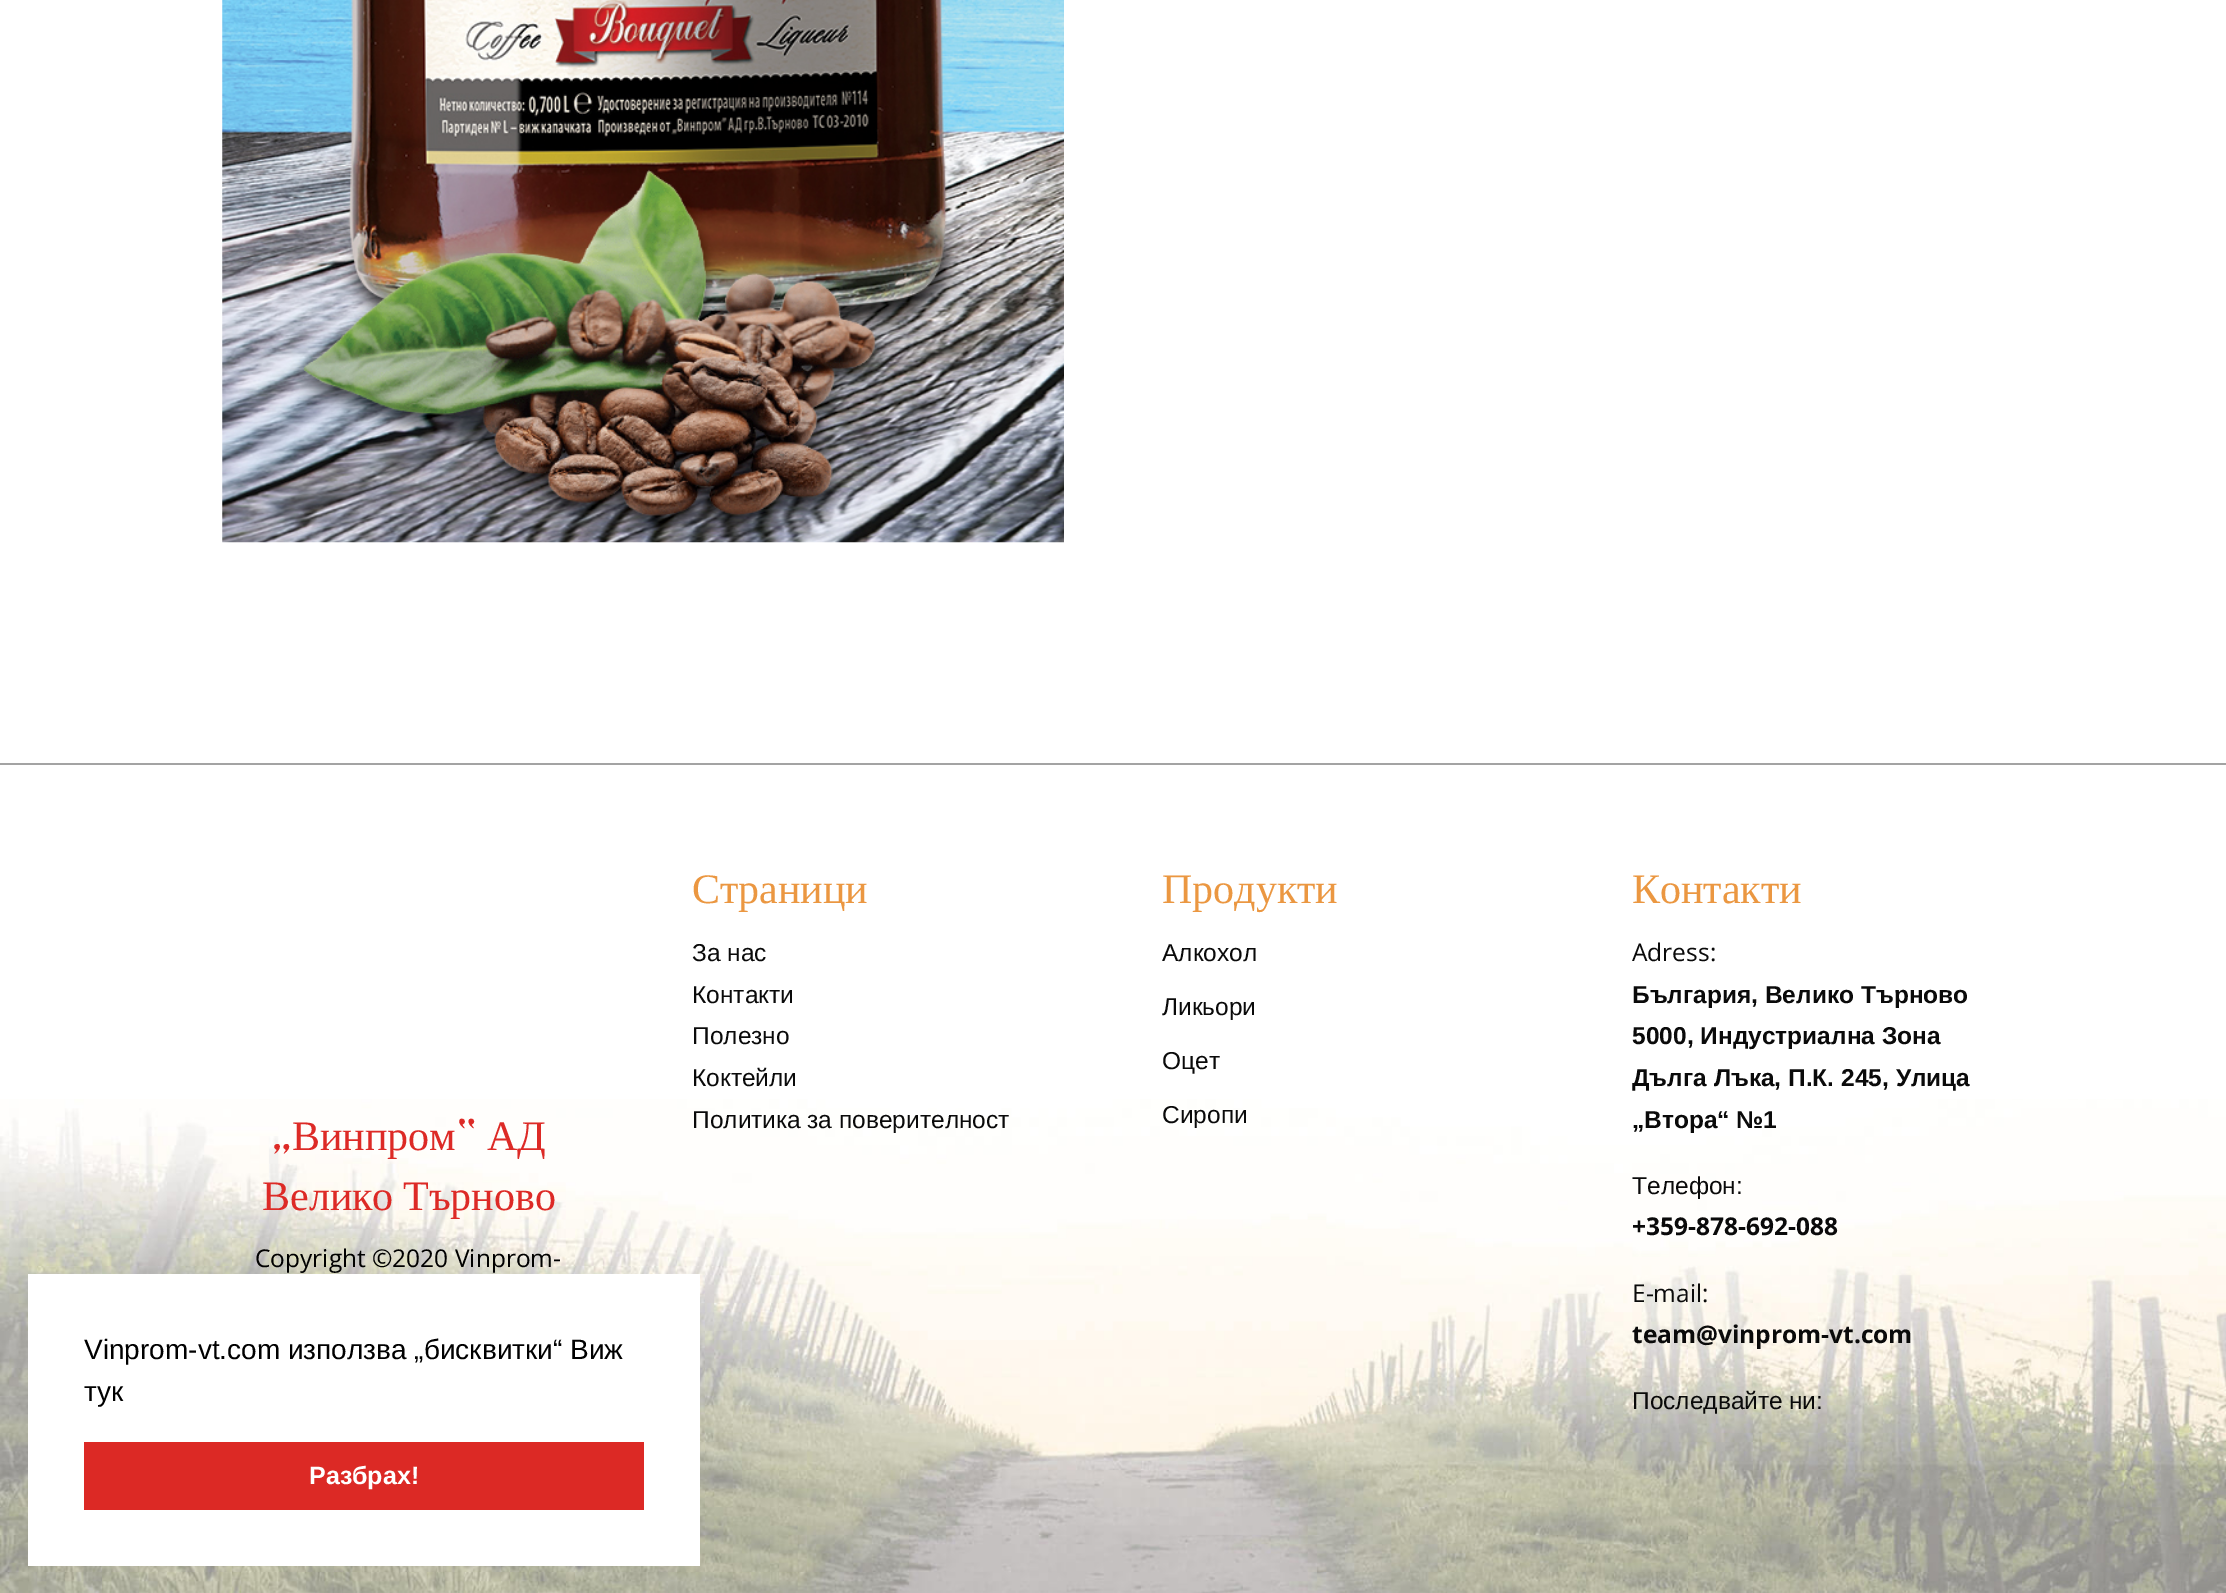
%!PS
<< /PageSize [2226 1593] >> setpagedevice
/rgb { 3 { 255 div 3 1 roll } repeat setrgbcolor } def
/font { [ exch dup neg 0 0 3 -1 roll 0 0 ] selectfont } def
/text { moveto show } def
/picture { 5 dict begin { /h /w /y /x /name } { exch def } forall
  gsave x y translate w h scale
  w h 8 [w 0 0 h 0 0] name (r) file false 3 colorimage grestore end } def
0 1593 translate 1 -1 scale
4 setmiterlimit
255 255 255 rgb
0 0 2226 1593 rectfill
(img_01.rgb) 222 0 842 543 picture
(img_02.rgb) 0 1099 2226 494 picture
163 163 163 rgb
0 763 2226 2 rectfill
255 255 255 rgb
28 1274 672 292 rectfill
220 41 37 rgb
84 1442 560 68 rectfill
/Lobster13-Regular 42 font
221 42 38 rgb
(„) 271 1150 text
/LiberationSerif-Regular 42 font
(Винпром) 292 1150 text
/Lobster13-Regular 42 font
(“) 456 1150 text
/LiberationSerif-Regular 42 font
(АД) 487 1150 text
262 1210 moveto -1 0 32 (Велико Търново) widthshow
/OpenSans-Regular 24.5 font
0 0 0 rgb
(Copyright ©2020 Vinprom-) 255 1267 text
/LiberationSerif-Regular 42 font
235 151 65 rgb
(Страници) 692 903 text
/LiberationSans-Regular 24.5 font
10 10 10 rgb
(За нас) 692 961 text
(Контакти) 692 1003 text
(Полезно) 692 1044 text
(Коктейли) 692 1086 text
(Политика за поверителност) 692 1128 text
/LiberationSerif-Regular 42 font
235 151 65 rgb
(Продукти) 1162 903 text
/LiberationSans-Regular 24.5 font
10 10 10 rgb
(Алкохол) 1162 961 text
(Ликьори) 1162 1015 text
(Оцет) 1162 1069 text
(Сиропи) 1162 1123 text
/LiberationSerif-Regular 42 font
235 151 65 rgb
(Контакти) 1632 903 text
/OpenSans-Regular 24.5 font
10 10 10 rgb
(Adress:) 1632 961 text
/LiberationSans-Bold 24.5 font
(България, Велико Търново) 1632 1003 text
(5000, Индустриална Зона) 1632 1044 text
(Дълга Лъка, П.К. 245, Улица) 1632 1086 text
1632 1128 moveto -1 0 32 („Втора“ №1) widthshow
/LiberationSans-Regular 24.5 font
(Телефон:) 1632 1194 text
/OpenSans-Bold 24.5 font
(+359-878-692-088) 1632 1235 text
/OpenSans-Regular 24.5 font
(E-mail:) 1632 1302 text
/OpenSans-Bold 24.5 font
(team@vinprom-vt.com) 1632 1343 text
/LiberationSans-Regular 24.5 font
1632 1409 moveto -1 0 32 (Последвайте ни:) widthshow
/LiberationSans-Regular 28 font
0 0 0 rgb
(Vinprom-vt.com използва „бисквитки“ Виж) 84 1359 text
(тук) 84 1401 text
/LiberationSans-Bold 25 font
255 255 255 rgb
(Разбрах!) 309 1484 text
showpage
